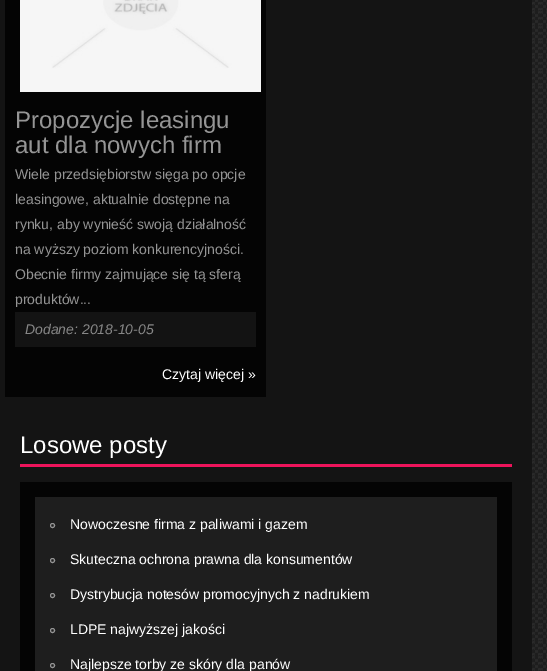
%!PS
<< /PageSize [547 671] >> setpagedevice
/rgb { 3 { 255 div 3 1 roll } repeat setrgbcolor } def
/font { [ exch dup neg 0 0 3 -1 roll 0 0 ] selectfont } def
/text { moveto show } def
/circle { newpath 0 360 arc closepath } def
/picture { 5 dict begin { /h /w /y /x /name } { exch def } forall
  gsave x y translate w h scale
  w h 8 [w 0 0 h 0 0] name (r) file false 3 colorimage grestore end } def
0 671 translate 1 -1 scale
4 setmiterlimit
255 255 255 rgb
0 0 547 671 rectfill
(img_01.rgb) 532 0 15 671 picture
20 20 20 rgb
0 0 532 671 rectfill
4 4 4 rgb
5 0 261 397 rectfill
(img_02.rgb) 20 0 241 92 picture
19 19 19 rgb
15 312 241 35 rectfill
237 20 91 rgb
20 464 492 3 rectfill
4 4 4 rgb
20 482 492 189 rectfill
30 30 30 rgb
35 497 462 174 rectfill
149 149 149 rgb
52.5 525.5 2 circle stroke
52.5 560.5 2 circle stroke
52.5 595.5 2 circle stroke
52.5 630.5 2 circle stroke
52.5 665.5 2 circle stroke
/LiberationSans-Regular 24 font
(Propozycje leasingu) 15 128 text
(aut dla nowych firm) 15 153 text
/LiberationSans-Regular 14 font
(Wiele przedsiębiorstw sięga po opcje) 15 179 text
(leasingowe, aktualnie dostępne na) 15 204 text
(rynku, aby wynieść swoją działalność) 15 229 text
(na wyższy poziom konkurencyjności.) 15 254 text
(Obecnie firmy zajmujące się tą sferą) 15 279 text
(produktów...) 15 304 text
/LiberationSans-Italic 14 font
135 135 135 rgb
(Dodane: 2018-10-05) 25 334 text
/LiberationSans-Regular 14 font
255 255 255 rgb
(Czytaj więcej ») 162 379 text
/LiberationSans-Regular 24 font
(Losowe posty) 20 453 text
/LiberationSans-Regular 14 font
(Nowoczesne firma z paliwami i gazem) 70 529 text
(Skuteczna ochrona prawna dla konsumentów) 70 564 text
(Dystrybucja notesów promocyjnych z nadrukiem) 70 599 text
(LDPE najwyższej jakości) 70 634 text
(Najlepsze torby ze skóry dla panów) 70 669 text
showpage
